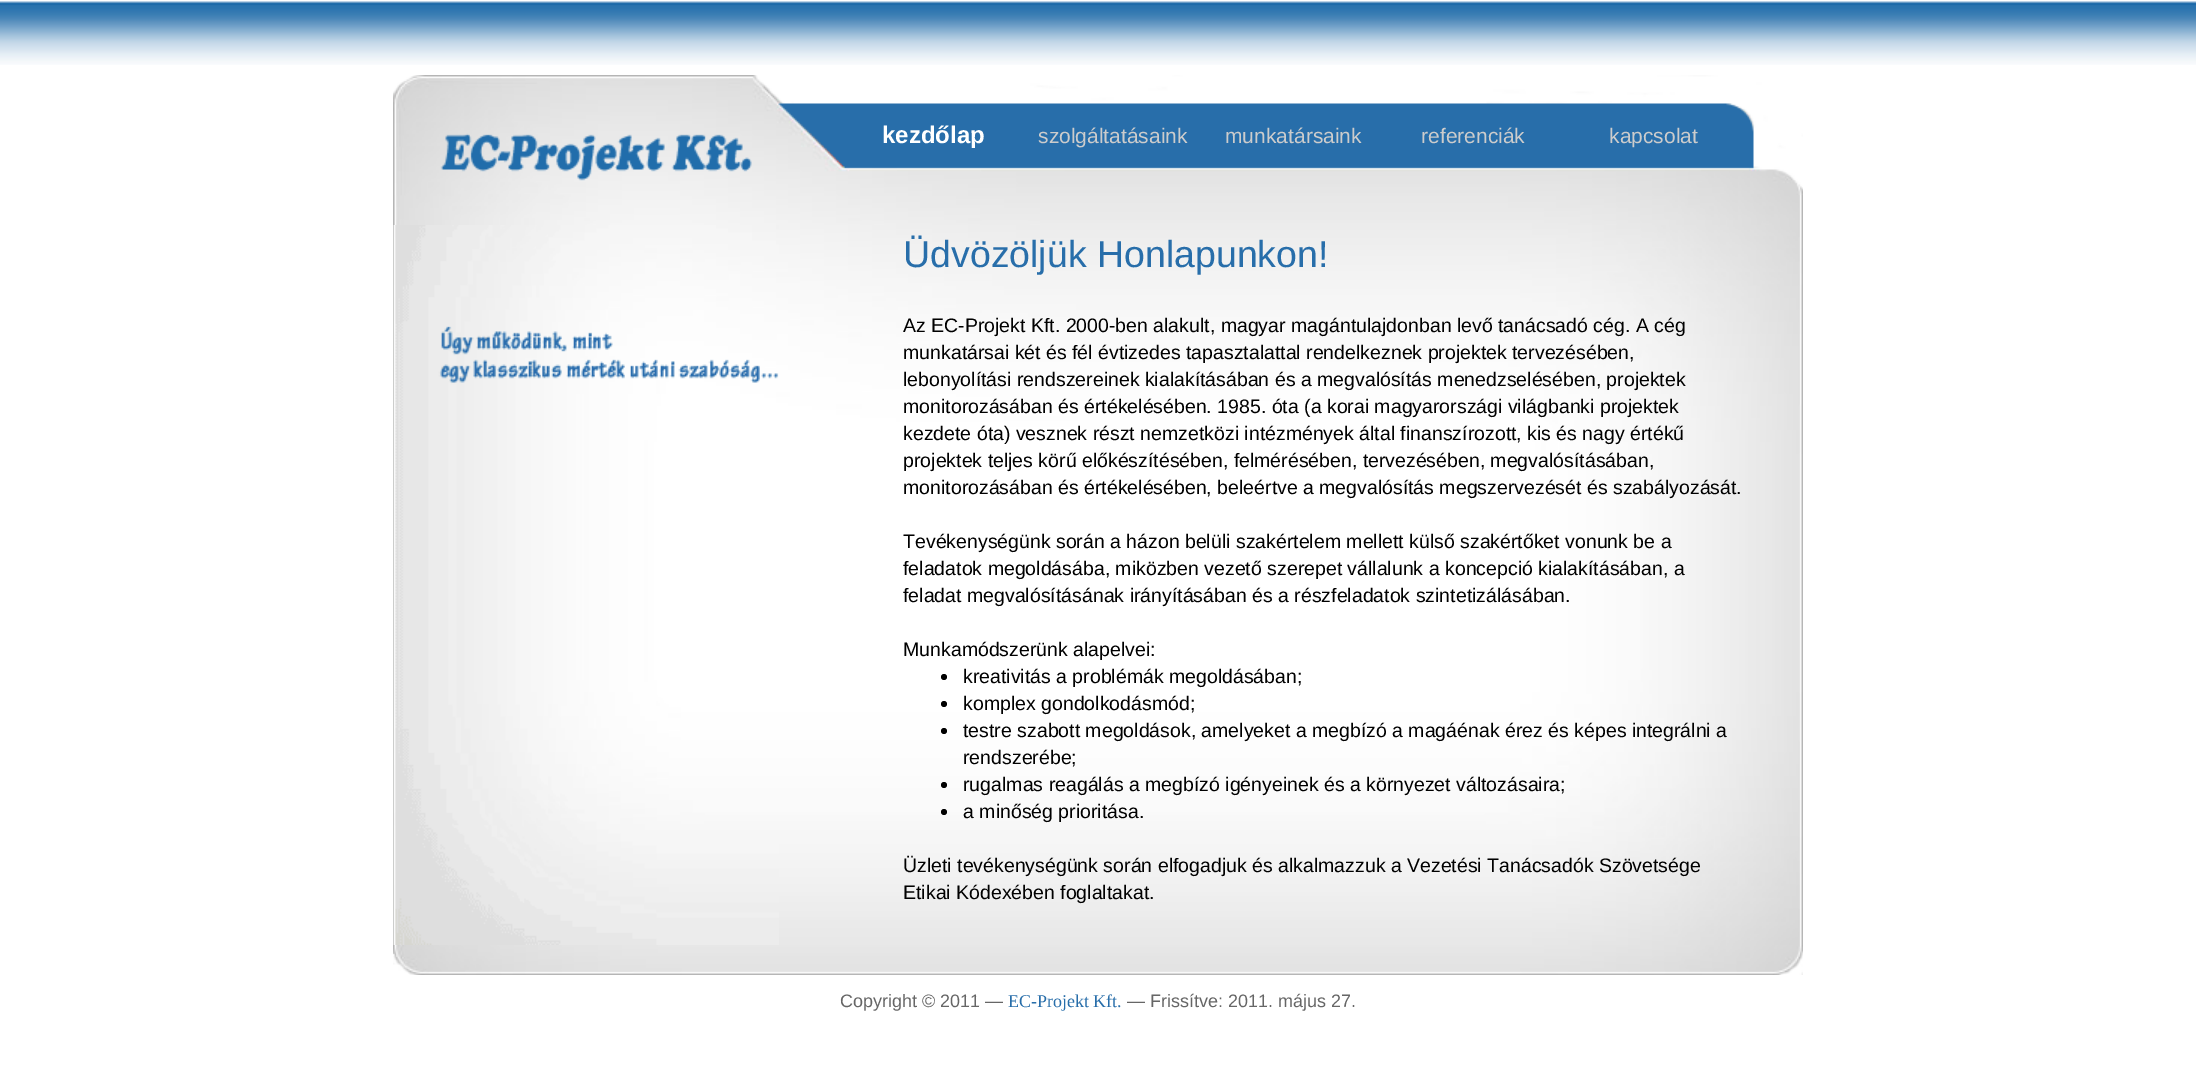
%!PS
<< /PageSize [2196 1065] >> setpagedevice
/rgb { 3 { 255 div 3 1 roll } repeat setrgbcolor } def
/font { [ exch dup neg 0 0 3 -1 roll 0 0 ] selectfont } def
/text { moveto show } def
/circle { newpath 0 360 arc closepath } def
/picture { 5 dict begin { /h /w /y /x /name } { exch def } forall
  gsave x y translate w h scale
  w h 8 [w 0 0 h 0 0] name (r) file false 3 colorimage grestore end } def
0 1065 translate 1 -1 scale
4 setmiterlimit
255 255 255 rgb
0 0 2196 1065 rectfill
(img_01.rgb) 0 1 2196 64 picture
(img_02.rgb) 393 75 1410 150 picture
(img_03.rgb) 440 133 312 48 picture
(img_04.rgb) 779 225 1024 720 picture
(img_05.rgb) 393 225 386 720 picture
0 0 0 rgb
944 677 3 circle fill
944 704 3 circle fill
944 731 3 circle fill
944 785 3 circle fill
944 812 3 circle fill
(img_06.rgb) 393 945 1410 30 picture
/LiberationSans-Bold 24 font
255 255 255 rgb
(kezdőlap) 882 143 text
/LiberationSans-Regular 21 font
204 204 204 rgb
(szolgáltatásaink) 1038 143 text
(munkatársaink) 1225 143 text
(referenciák) 1421 143 text
(kapcsolat) 1609 143 text
/LiberationSans-Regular 37.5 font
40 110 170 rgb
(Üdvözöljük Honlapunkon!) 903 267 text
/LiberationSans-Regular 19.5 font
0 0 0 rgb
(Az EC-Projekt Kft. 2000-ben alakult, magyar magántulajdonban levő tanácsadó cég. A cég) 903 332 text
(munkatársai két és fél évtizedes tapasztalattal rendelkeznek projektek tervezésében,) 903 359 text
(lebonyolítási rendszereinek kialakításában és a megvalósítás menedzselésében, projektek) 903 386 text
(monitorozásában és értékelésében. 1985. óta \(a korai magyarországi világbanki projektek) 903 413 text
(kezdete óta\) vesznek részt nemzetközi intézmények által finanszírozott, kis és nagy értékű) 903 440 text
(projektek teljes körű előkészítésében, felmérésében, tervezésében, megvalósításában,) 903 467 text
(monitorozásában és értékelésében, beleértve a megvalósítás megszervezését és szabályozását.) 903 494 text
(Tevékenységünk során a házon belüli szakértelem mellett külső szakértőket vonunk be a) 903 548 text
(feladatok megoldásába, miközben vezető szerepet vállalunk a koncepció kialakításában, a) 903 575 text
(feladat megvalósításának irányításában és a részfeladatok szintetizálásában.) 903 602 text
(Munkamódszerünk alapelvei:) 903 656 text
(kreativitás a problémák megoldásában;) 963 683 text
(komplex gondolkodásmód;) 963 710 text
(testre szabott megoldások, amelyeket a megbízó a magáénak érez és képes integrálni a) 963 737 text
(rendszerébe;) 963 764 text
(rugalmas reagálás a megbízó igényeinek és a környezet változásaira;) 963 791 text
(a minőség prioritása.) 963 818 text
(Üzleti tevékenységünk során elfogadjuk és alkalmazzuk a Vezetési Tanácsadók Szövetsége) 903 872 text
(Etikai Kódexében foglaltakat.) 903 899 text
/LiberationSans-Regular 18 font
102 102 102 rgb
(Copyright © 2011 —) 840 1007 text
/LiberationSerif-Regular 18 font
40 110 170 rgb
(EC-Projekt Kft.) 1008 1007 text
/LiberationSans-Regular 18 font
102 102 102 rgb
(— Frissítve: 2011. május 27.) 1127 1007 text
showpage
